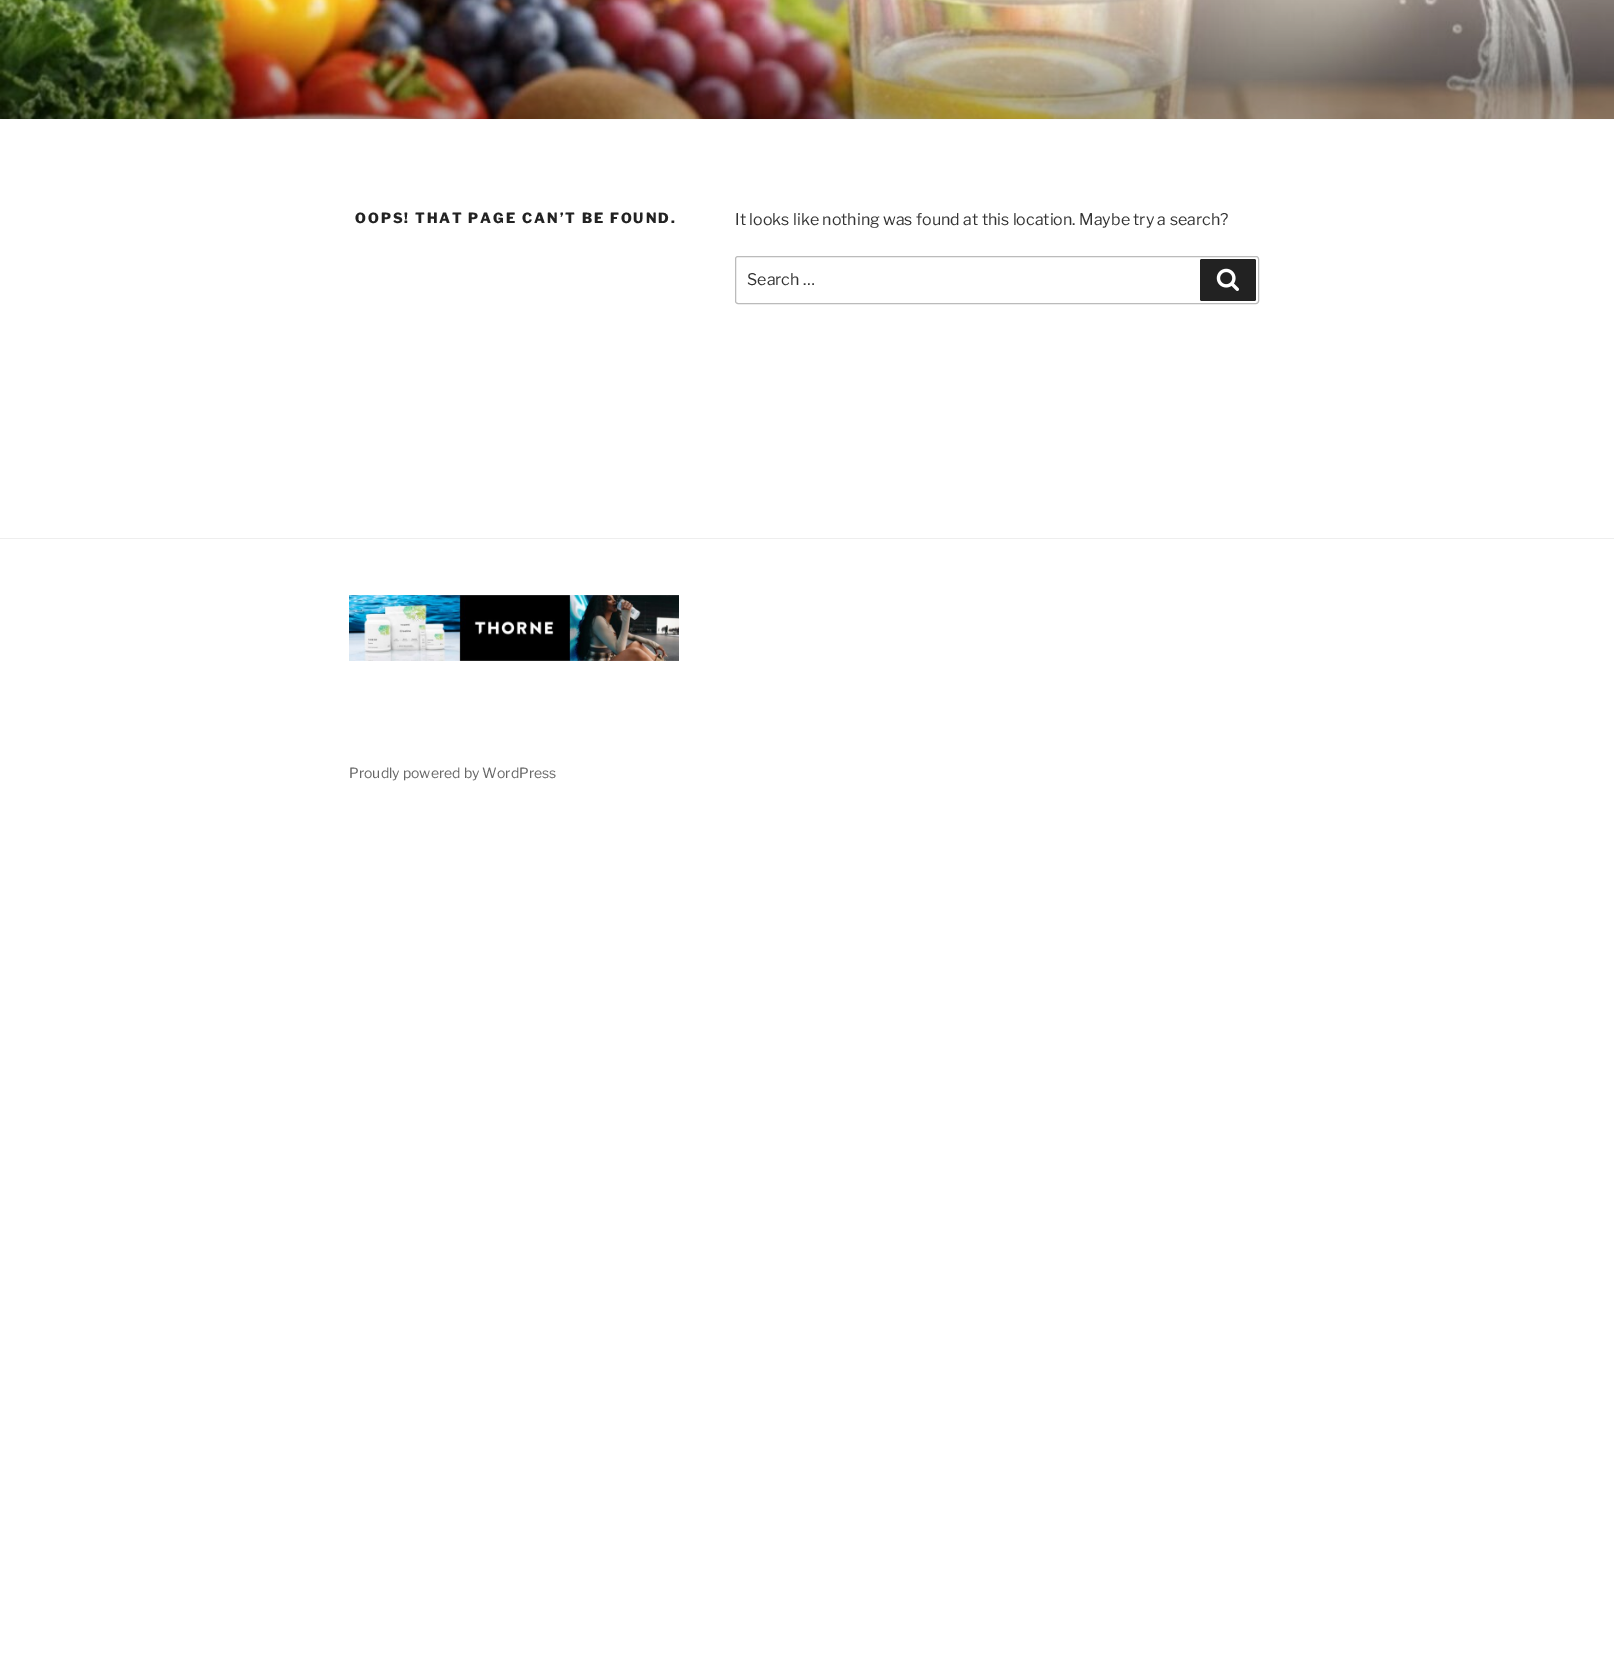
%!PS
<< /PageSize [1614 1670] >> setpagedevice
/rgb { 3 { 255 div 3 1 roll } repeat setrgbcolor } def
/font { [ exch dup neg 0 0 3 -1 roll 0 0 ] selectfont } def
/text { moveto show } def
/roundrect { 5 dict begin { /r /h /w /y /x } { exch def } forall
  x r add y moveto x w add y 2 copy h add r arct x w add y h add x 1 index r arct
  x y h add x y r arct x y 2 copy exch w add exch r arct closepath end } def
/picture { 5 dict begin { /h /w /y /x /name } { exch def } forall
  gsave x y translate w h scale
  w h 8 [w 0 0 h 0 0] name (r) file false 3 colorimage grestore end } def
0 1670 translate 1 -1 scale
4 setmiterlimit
255 255 255 rgb
0 0 1614 1670 rectfill
250 250 250 rgb
0 119 1614 1 rectfill
(img_01.rgb) 0 0 1614 119 picture
187 187 187 rgb
735.5 256.5 523 47 2.5 roundrect stroke
34 34 34 rgb
1200 259 56 42 2 roundrect fill
(img_02.rgb) 1216 268 23 23 picture
238 238 238 rgb
0 538 1614 1 rectfill
(img_03.rgb) 349 595 330 66 picture
/LibreFranklin-Thin 14 font
34 34 34 rgb
355 223 moveto 1.95 0 (OOPS! THAT PAGE CAN’T BE FOUND.) ashow
/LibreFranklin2-Thin 16 font
51 51 51 rgb
(It looks like nothing was found at this location. Maybe try a search?) 735 225 text
(Search …) 747 285 text
/LibreFranklin2-Thin 14 font
102 102 102 rgb
(Proudly powered by WordPress) 349 778 text
showpage
